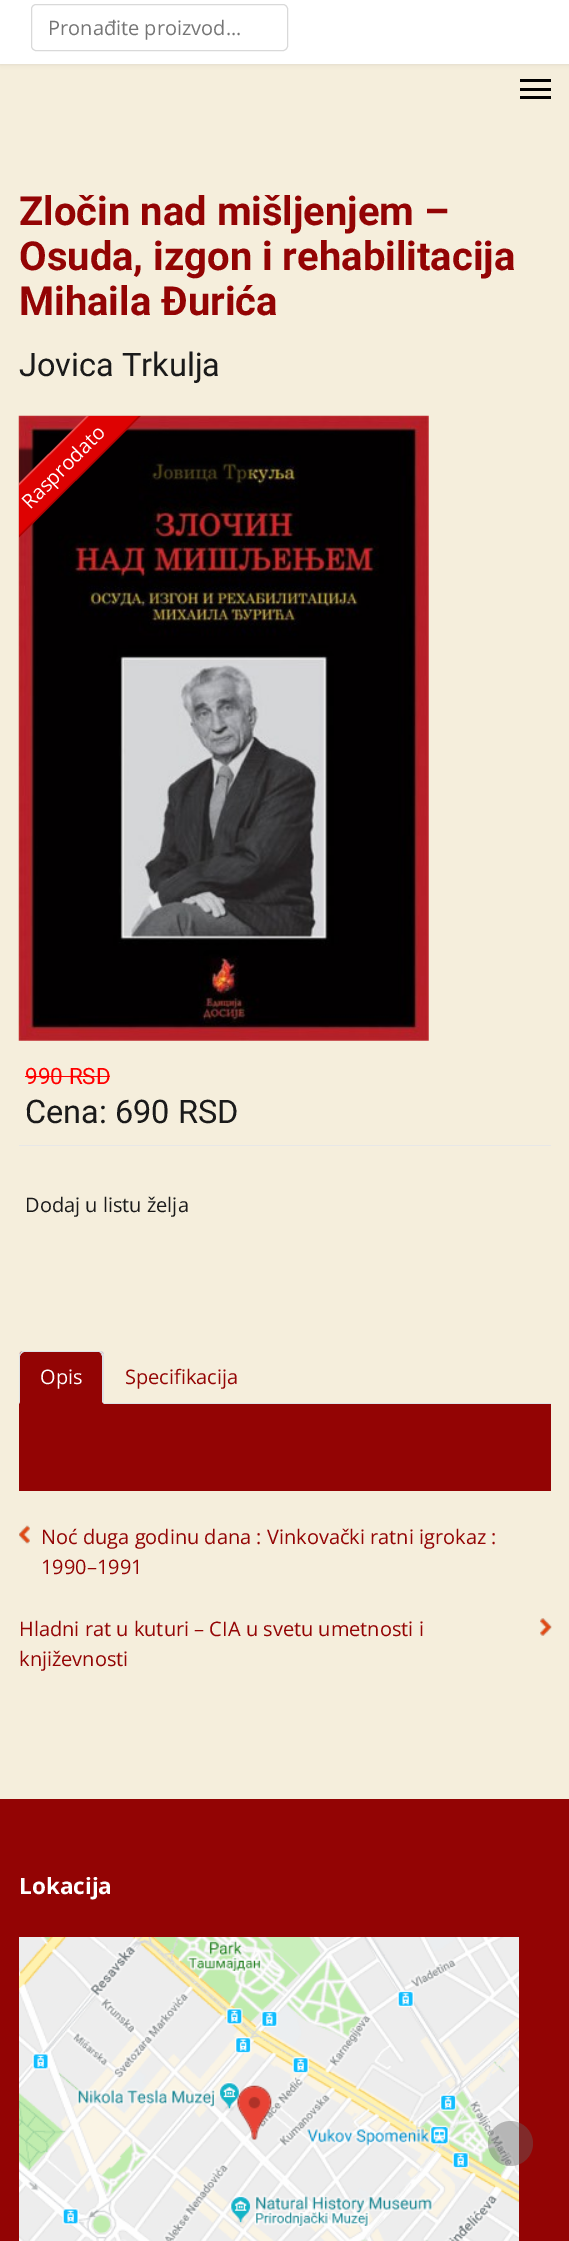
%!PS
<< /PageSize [569 2241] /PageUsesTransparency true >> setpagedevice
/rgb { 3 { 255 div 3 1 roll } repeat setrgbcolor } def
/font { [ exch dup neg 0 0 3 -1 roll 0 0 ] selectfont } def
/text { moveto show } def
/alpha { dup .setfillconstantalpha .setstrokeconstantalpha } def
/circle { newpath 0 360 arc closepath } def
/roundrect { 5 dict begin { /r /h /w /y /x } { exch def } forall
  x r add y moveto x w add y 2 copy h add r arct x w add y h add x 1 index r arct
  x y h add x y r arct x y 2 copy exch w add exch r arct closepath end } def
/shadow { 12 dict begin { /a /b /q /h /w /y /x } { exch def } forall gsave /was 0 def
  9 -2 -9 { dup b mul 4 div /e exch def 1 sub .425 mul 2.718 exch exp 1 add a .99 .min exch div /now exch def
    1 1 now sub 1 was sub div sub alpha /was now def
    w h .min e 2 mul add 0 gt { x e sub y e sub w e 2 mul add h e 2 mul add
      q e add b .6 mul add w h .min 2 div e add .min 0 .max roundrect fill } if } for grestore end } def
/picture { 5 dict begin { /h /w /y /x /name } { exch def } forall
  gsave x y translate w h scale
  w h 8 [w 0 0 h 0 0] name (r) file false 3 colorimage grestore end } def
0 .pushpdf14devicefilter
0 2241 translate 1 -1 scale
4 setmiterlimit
245 238 220 rgb
0 0 569 2241 rectfill
0 0 0 rgb
0 -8 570 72 0 2.5 0.1 shadow
255 255 255 rgb
0 0 569 64 rectfill
217 217 217 rgb
31.5 4.5 256 46 4.5 roundrect stroke
0 0 0 rgb
520 79 31 3 rectfill
520 88 31 3 rectfill
520 96 31 3 rectfill
(img_01.rgb) 18 415 411 626 picture
gsave
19 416 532 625 rectclip
-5 449 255 39 0 1.5 0.6 shadow
grestore
gsave
19 416 532 625 rectclip
222 2 2 rgb
-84 586 moveto 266 -265 rlineto 27 27 rlineto -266 265 rlineto closepath fill
0.2 alpha
0 0 0 rgb
-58 612 moveto 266 -265 rlineto 1 1 rlineto -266 265 rlineto closepath fill
0.3 alpha
255 255 255 rgb
-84 586 moveto 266 -265 rlineto 1 1 rlineto -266 265 rlineto closepath fill
grestore
231 231 231 rgb
19 1145 532 1 rectfill
255 0 0 rgb
25 1076 85 1 rectfill
222 226 230 rgb
104 1403 447 1 rectfill
147 4 4 rgb
24 1351 moveto 75 0 rlineto 3 0 5 2 5 5 rcurveto 0 48 rlineto -85 0 rlineto 0 -48 rlineto 0 -3 2 -5 5 -5 rcurveto closepath fill
222 226 230 rgb
24 1352 moveto -1 0 -2 1 -3 2 rcurveto -1 -1 rlineto 2 -2 rlineto 79 0 rlineto 2 1 rlineto -2 2 rlineto 0 -1 -1 -2 -2 -2 rcurveto closepath fill
103 1352 moveto 1 2 rlineto 0 50 rlineto -2 -2 rlineto 0 -46 rlineto -1 -2 rlineto closepath fill
19 1404 moveto 0 -48 rlineto 0 -1 0 -3 1 -3 rcurveto 1 1 rlineto -1 2 rlineto 0 46 rlineto closepath fill
147 4 4 rgb
19 1404 532 87 rectfill
(img_02.rgb) 19 1525 11 19 picture
(img_03.rgb) 540 1618 12 18 picture
0 1799 569 442 rectfill
(img_04.rgb) 19 1937 500 304 picture
0.4 alpha
100 100 100 rgb
510.5 2143.5 22.5 circle fill
/OpenSans-Regular 20 font
1 alpha
117 117 117 rgb
(Pronađite proizvod...) 48 35 text
/Roboto-Bold 40 font
147 4 4 rgb
(Zločin nad mišljenjem –) 19 225 text
(Osuda, izgon i rehabilitacija) 19 270 text
(Mihaila Đurića) 19 315 text
/Roboto-Regular 32.5 font
26 26 26 rgb
(Jovica Trkulja) 19 376 text
/OpenSans-Regular 20 font
255 255 255 rgb
gsave 30 510 translate -45 rotate 0 0 moveto (Rasprodato) show grestore
/Roboto-Regular 22.5 font
255 0 0 rgb
(990 RSD) 25 1084 text
/Roboto-Regular 32.5 font
26 26 26 rgb
(Cena: 690 RSD) 25 1123 text
/OpenSans-Regular 20 font
(Dodaj u listu želja) 25 1212 text
255 255 255 rgb
(Opis) 40 1384 text
147 4 4 rgb
(Specifikacija) 125 1384 text
(Noć duga godinu dana : Vinkovački ratni igrokaz :) 41 1544 text
(1990–1991) 41 1574 text
(Hladni rat u kuturi – CIA u svetu umetnosti i) 19 1636 text
(književnosti) 19 1666 text
/OpenSans-Bold 22.5 font
255 255 255 rgb
(Lokacija) 19 1894 text
.poppdf14devicefilter showpage
